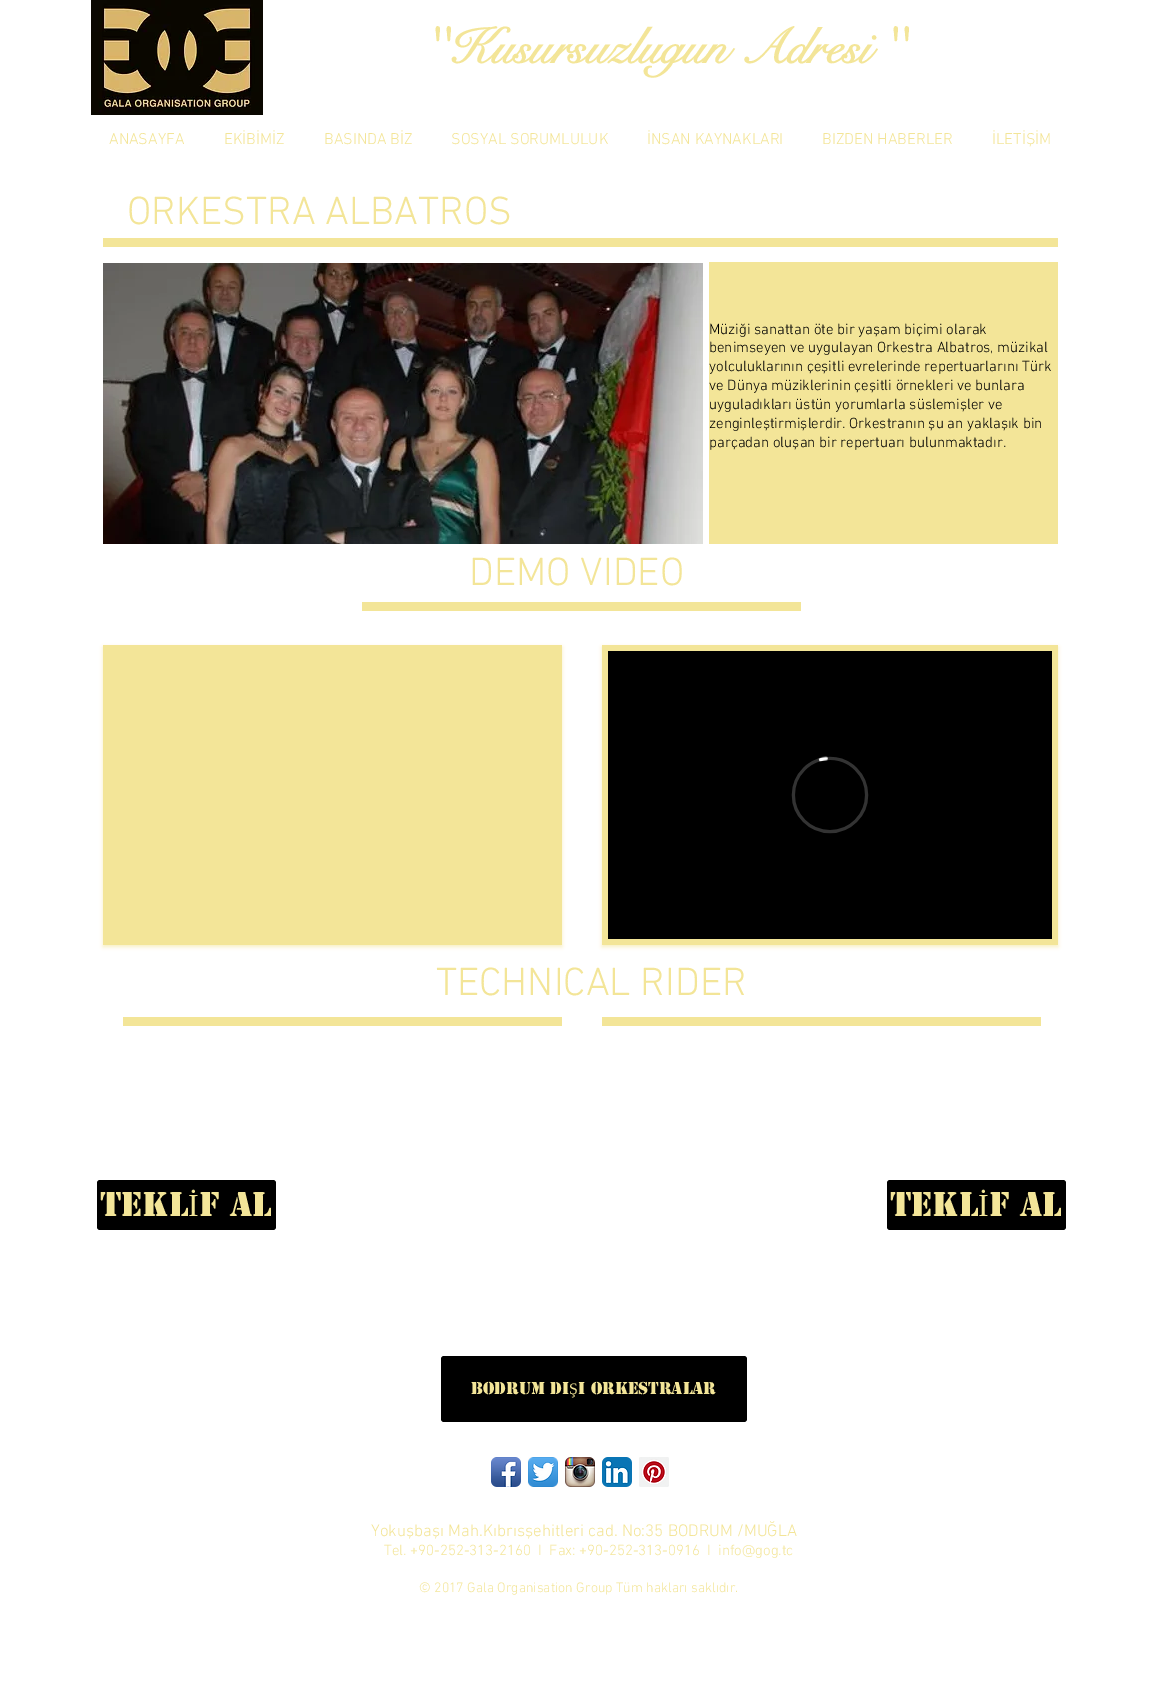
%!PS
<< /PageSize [1163 1706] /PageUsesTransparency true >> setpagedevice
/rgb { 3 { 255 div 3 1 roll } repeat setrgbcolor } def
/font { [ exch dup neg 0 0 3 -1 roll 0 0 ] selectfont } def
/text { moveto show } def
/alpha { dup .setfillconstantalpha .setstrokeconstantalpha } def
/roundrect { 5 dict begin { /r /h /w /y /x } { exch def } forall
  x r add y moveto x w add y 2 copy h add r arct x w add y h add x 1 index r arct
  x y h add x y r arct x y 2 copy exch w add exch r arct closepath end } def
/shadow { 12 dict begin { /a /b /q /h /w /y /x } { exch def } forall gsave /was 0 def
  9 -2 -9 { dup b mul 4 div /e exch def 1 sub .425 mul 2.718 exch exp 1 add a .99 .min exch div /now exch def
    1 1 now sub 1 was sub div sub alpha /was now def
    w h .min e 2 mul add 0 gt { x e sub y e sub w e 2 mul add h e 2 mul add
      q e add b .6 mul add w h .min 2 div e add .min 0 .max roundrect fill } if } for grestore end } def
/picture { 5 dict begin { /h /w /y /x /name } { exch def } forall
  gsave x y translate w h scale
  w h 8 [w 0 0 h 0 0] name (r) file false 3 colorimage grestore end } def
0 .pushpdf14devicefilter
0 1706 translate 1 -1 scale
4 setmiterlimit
255 255 255 rgb
0 0 1163 1706 rectfill
(img_01.rgb) 91 0 172 115 picture
243 229 152 rgb
103 238 955 9 rectfill
(img_02.rgb) 103 263 600 281 picture
709 262 349 282 rectfill
362 602 439 9 rectfill
103 647 459 300 0 2 0.6 shadow
103 645 459 300 rectfill
602 647 456 300 0 2 0.6 shadow
602 645 456 300 rectfill
(img_03.rgb) 608 651 444 288 picture
123 1017 439 9 rectfill
602 1017 439 9 rectfill
0 0 0 rgb
97 1180 179 50 3 roundrect fill
887 1180 179 50 3 roundrect fill
441 1356 306 66 3 roundrect fill
(img_04.rgb) 491 1457 30 30 picture
(img_05.rgb) 528 1457 30 30 picture
(img_06.rgb) 565 1457 30 30 picture
(img_07.rgb) 602 1457 30 30 picture
(img_08.rgb) 639 1457 30 30 picture
/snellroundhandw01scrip-Bold 50 font
243 229 152 rgb
(''Kusursuzlugun Adresi '') 425 63 text
/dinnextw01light-Light 16 font
(ANASAYFA) 109 144 text
(EKİBİMİZ) 224 144 text
(BASINDA BİZ) 324 144 text
(SOSYAL SORUMLULUK) 451 144 text
(İNSAN KAYNAKLARI) 647 144 text
(BIZDEN HABERLER) 822 144 text
(İLETİŞİM) 992 144 text
/dinnextw01light-Light 40 font
(ORKESTRA ALBATROS) 127 224 text
/dinnextw01light-Light 15 font
0 0 0 rgb
(Müziği sanattan öte bir yaşam biçimi olarak) 709 334 text
(benimseyen ve uygulayan Orkestra Albatros, müzikal) 709 352 text
(yolculuklarının çeşitli evrelerinde repertuarlarını Türk) 709 371 text
(ve Dünya müziklerinin çeşitli örnekleri ve bunlara) 709 390 text
(uyguladıkları üstün yorumlarla süslemişler ve) 709 409 text
(zenginleştirmişlerdir. Orkestranın şu an yaklaşık bin) 709 428 text
(parçadan oluşan bir repertuarı bulunmaktadır.) 709 447 text
/dinnextw01light-Light 40 font
243 229 152 rgb
(DEMO VIDEO) 469 585 text
(TECHNICAL RIDER) 436 995 text
/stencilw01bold-Bold 32 font
(TEKL F AL) 100 1216 text
/LiberationSerif-Regular 32 font
(İ) 188 1216 text
/stencilw01bold-Bold 32 font
(TEKL F AL) 890 1216 text
/LiberationSerif-Regular 32 font
(İ) 978 1216 text
/stencilw01bold-Bold 16 font
(BODRUM DI) 471 1394 text
/LiberationSerif-Regular 16 font
(Ş) 569 1394 text
/stencilw01bold-Bold 16 font
(I ORKESTRALAR) 578 1394 text
/dinnextw01light-Light 17 font
(Yokuşbaşı Mah.Kıbrısşehitleri cad. No:35 BODRUM /MUĞLA) 371 1536 text
/dinnextw01light-Light 15 font
(Tel. +90-252-313-2160  I  Fax: +90-252-313-0916  I) 384 1555 text
(info@gog.tc) 718 1555 text
/dinnextw01light-Light 14 font
(© 2017 Gala Organisation Group Tüm hakları saklıdır.) 419 1592 text
.poppdf14devicefilter showpage
